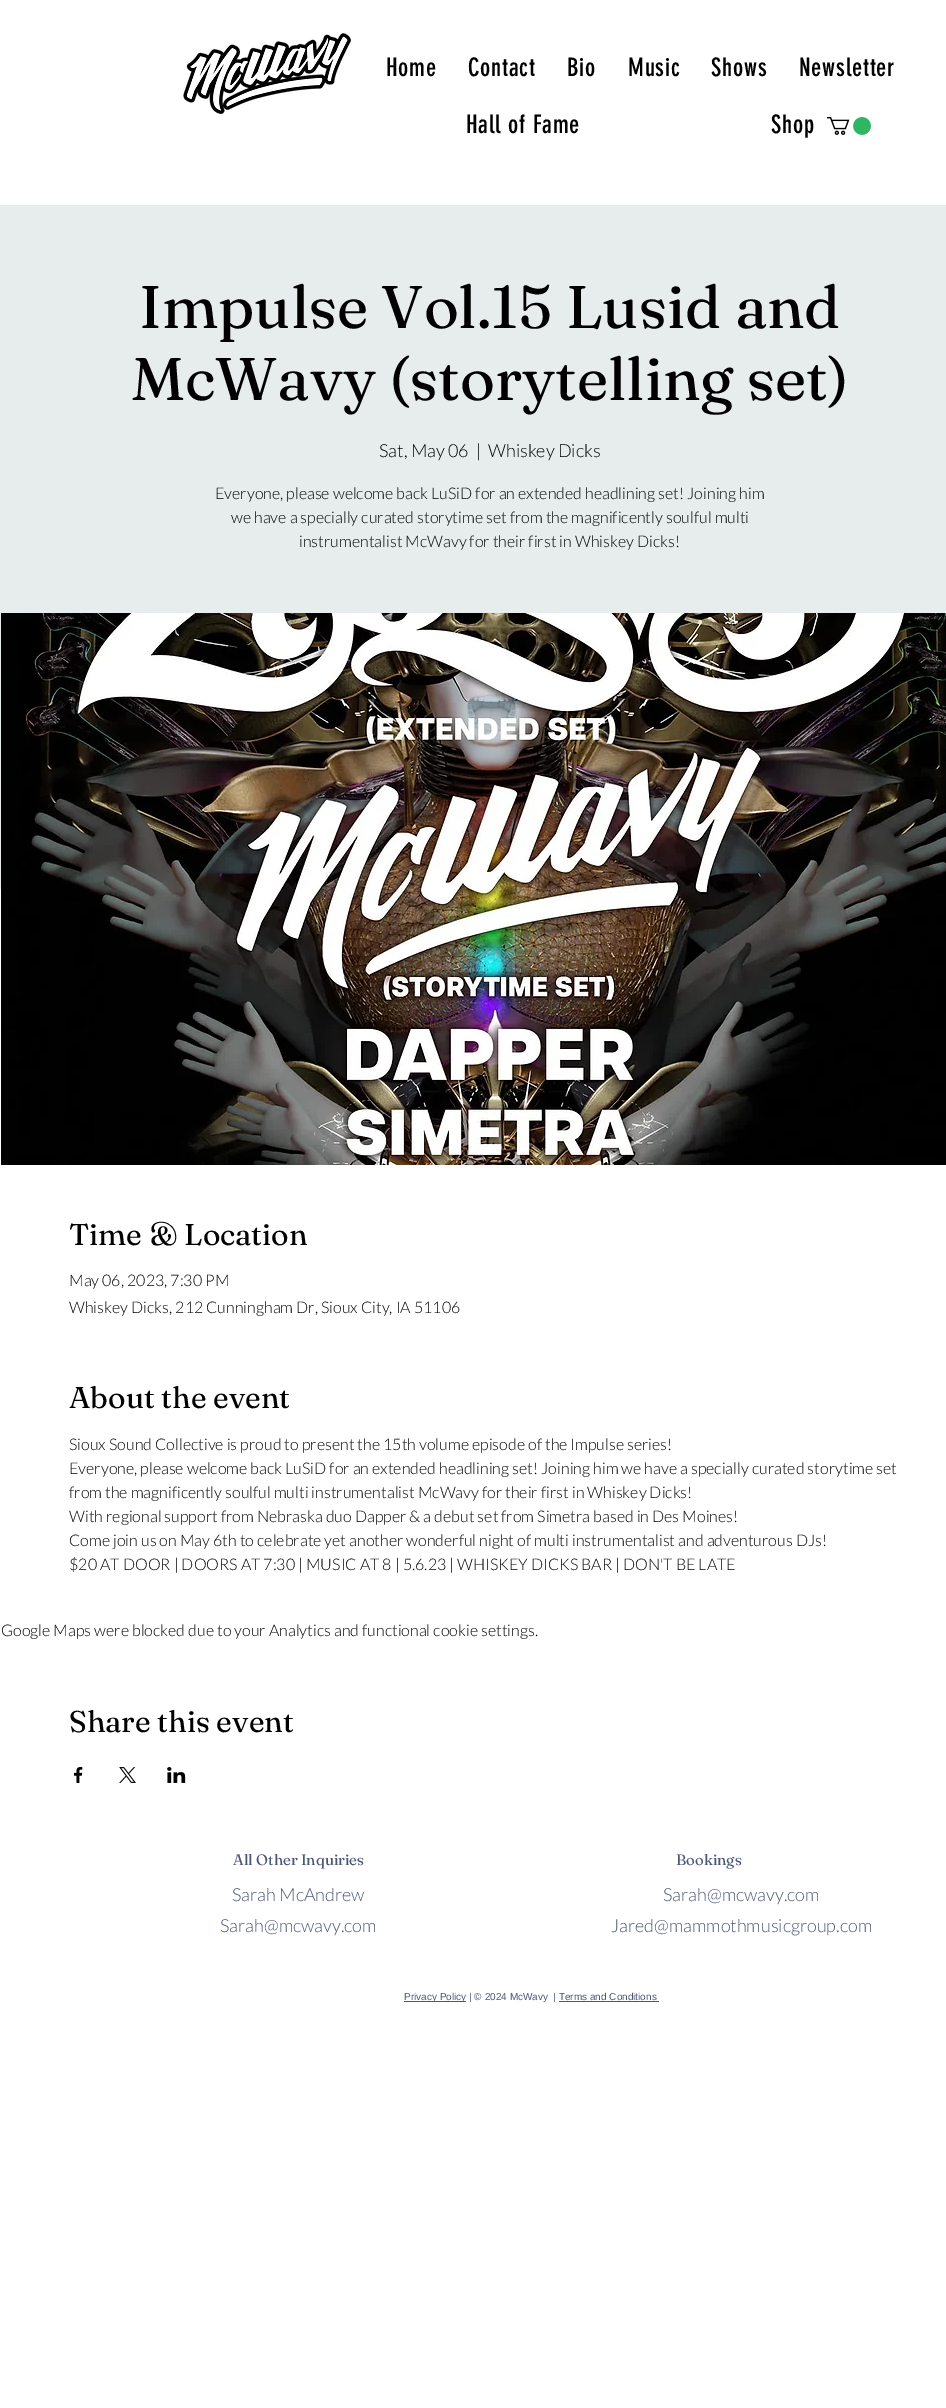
%!PS
<< /PageSize [946 2408] >> setpagedevice
/rgb { 3 { 255 div 3 1 roll } repeat setrgbcolor } def
/font { [ exch dup neg 0 0 3 -1 roll 0 0 ] selectfont } def
/text { moveto show } def
/picture { 5 dict begin { /h /w /y /x /name } { exch def } forall
  gsave x y translate w h scale
  w h 8 [w 0 0 h 0 0] name (r) file false 3 colorimage grestore end } def
0 2408 translate 1 -1 scale
4 setmiterlimit
255 255 255 rgb
0 0 946 2408 rectfill
(img_01.rgb) 183 33 169 81 picture
(img_02.rgb) 827 117 44 18 picture
230 237 236 rgb
0 205 946 684 rectfill
(img_03.rgb) 1 613 945 552 picture
(img_04.rgb) 74 1767 9 16 picture
(img_05.rgb) 119 1767 17 16 picture
(img_06.rgb) 167 1767 19 16 picture
75 86 118 rgb
404 2001 62 1 rectfill
559 2001 100 1 rectfill
/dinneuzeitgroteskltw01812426-Regular 25 font
0 0 0 rgb
386 76 moveto 0.75 0 (Home) ashow
468 76 moveto 0.75 0 (Contact) ashow
567 76 moveto 0.75 0 (Bio) ashow
628 76 moveto 0.75 0 (Music) ashow
711 76 moveto 0.75 0 (Shows) ashow
799 76 moveto 0.75 0 (Newsletter) ashow
466 133 moveto 0.75 0 (Hall of Fame) ashow
771 133 moveto 0.75 0 (Shop) ashow
/Fraunces-Regular 60 font
(Impulse Vol.15 Lusid and) 139 328 text
(McWavy \(storytelling set\)) 131 400 text
/Lato-Light 18 font
(Sat, May 06) 379 457 text
(|) 476 457 text
(Whiskey Dicks) 488 457 text
/Lato-Light 16 font
(Everyone, please welcome back LuSiD for an extended headlining set! Joining him) 215 499 text
(we have a specially curated storytime set from the magnificently soulful multi) 231 523 text
(instrumentalist McWavy for their first in Whiskey Dicks!) 299 547 text
/Fraunces-Regular 30 font
(Time & Location) 69 1245 text
/Lato-Light 16 font
(May 06, 2023, 7:30 PM) 69 1286 text
(Whiskey Dicks, 212 Cunningham Dr, Sioux City, IA 51106) 69 1313 text
/Fraunces-Regular 30 font
(About the event) 69 1408 text
/Lato-Light 16 font
(Sioux Sound Collective is proud to present the 15th volume episode of the Impulse series!) 69 1450 text
(Everyone, please welcome back LuSiD for an extended headlining set! Joining him we have a specially curated storytime set) 69 1474 text
(from the magnificently soulful multi instrumentalist McWavy for their first in Whiskey Dicks!) 69 1498 text
(With regional support from Nebraska duo Dapper & a debut set from Simetra based in Des Moines!) 69 1522 text
(Come join us on May 6th to celebrate yet another wonderful night of multi instrumentalist and adventurous DJs!) 69 1546 text
($20 AT DOOR | DOORS AT 7:30 | MUSIC AT 8 | 5.6.23 | WHISKEY DICKS BAR | DON'T BE LATE) 69 1570 text
(Google Maps were blocked due to your Analytics and functional cookie settings.) 1 1636 text
/Fraunces-Regular 30 font
(Share this event) 69 1732 text
/Fraunces-Regular 15 font
75 86 118 rgb
(All Other Inquiries) 233 1865 text
(Bookings) 676 1865 text
/Lato-Light 18 font
(Sarah McAndrew) 232 1901 text
(Sarah@mcwavy.com) 220 1932 text
(Sarah@mcwavy.com) 663 1901 text
(Jared@mammothmusicgroup.com) 611 1932 text
/LiberationSans-Regular 10 font
(Privacy Policy | © 2024 McWavy  | Terms and Conditions) 404 2000 text
showpage
